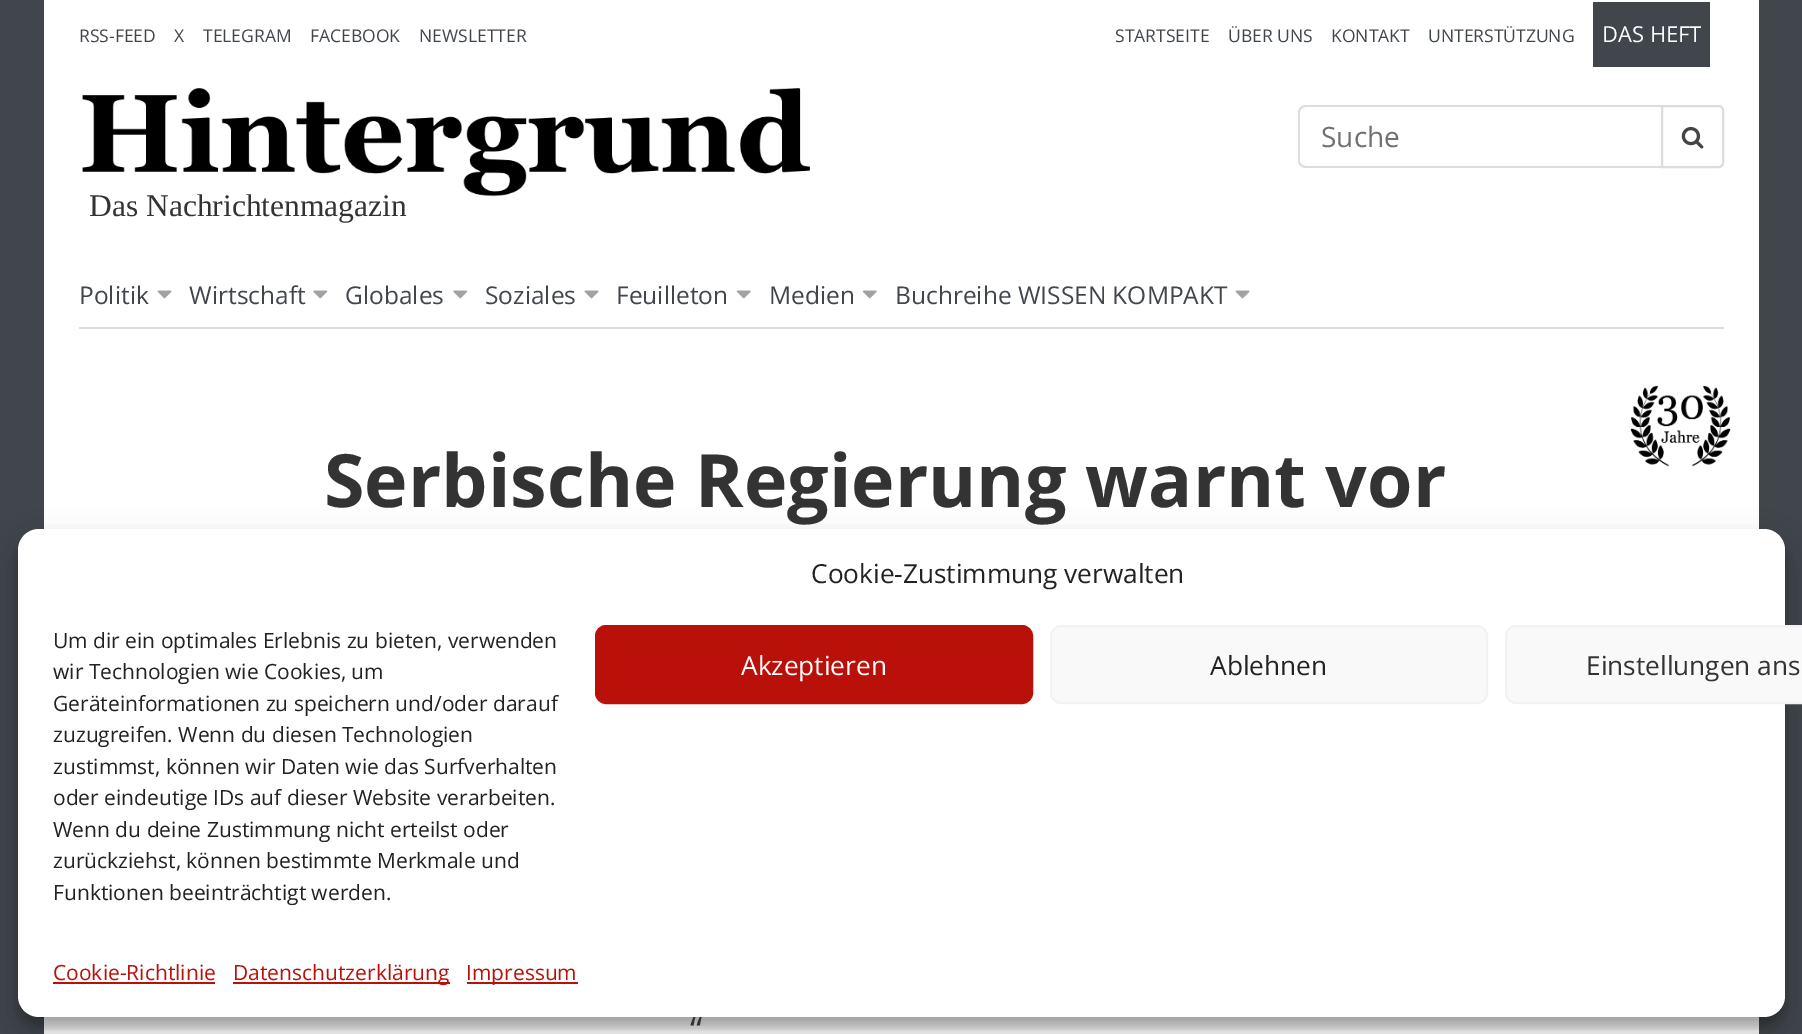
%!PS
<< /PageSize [1802 1034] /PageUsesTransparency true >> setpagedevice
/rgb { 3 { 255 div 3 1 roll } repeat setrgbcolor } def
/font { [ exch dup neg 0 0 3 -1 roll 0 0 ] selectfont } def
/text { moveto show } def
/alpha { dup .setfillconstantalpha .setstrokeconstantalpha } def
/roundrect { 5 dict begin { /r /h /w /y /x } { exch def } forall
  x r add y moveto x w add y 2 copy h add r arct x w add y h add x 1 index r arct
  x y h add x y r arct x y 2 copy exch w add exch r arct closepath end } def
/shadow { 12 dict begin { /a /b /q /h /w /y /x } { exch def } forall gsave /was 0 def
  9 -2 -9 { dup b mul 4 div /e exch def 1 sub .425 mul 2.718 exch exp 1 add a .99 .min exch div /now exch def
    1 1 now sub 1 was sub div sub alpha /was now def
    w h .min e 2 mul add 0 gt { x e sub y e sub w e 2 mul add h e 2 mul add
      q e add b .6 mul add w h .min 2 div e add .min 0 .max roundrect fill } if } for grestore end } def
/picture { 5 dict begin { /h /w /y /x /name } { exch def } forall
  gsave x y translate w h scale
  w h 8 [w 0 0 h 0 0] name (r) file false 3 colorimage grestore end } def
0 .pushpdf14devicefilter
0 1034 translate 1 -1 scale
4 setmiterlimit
65 70 77 rgb
0 0 1802 1034 rectfill
255 255 255 rgb
44 0 1715 1034 rectfill
221 221 221 rgb
79 327 1645 2 rectfill
65 70 77 rgb
1593 2 117 65 rectfill
221 221 221 rgb
1306 105 moveto 355 0 rlineto 0 63 rlineto -355 0 rlineto -4 0 -8 -3 -8 -7 rcurveto 0 -49 rlineto 0 -4 4 -7 8 -7 rcurveto closepath 1306 107 moveto 355 0 rlineto 0 59 rlineto -355 0 rlineto -3 0 -6 -2 -6 -5 rcurveto 0 -49 rlineto 0 -3 3 -5 6 -5 rcurveto closepath eofill
2 setlinewidth
1662 106 moveto 57 0 rlineto 2 0 4 2 4 4 rcurveto 0 53 rlineto 0 2 -2 4 -4 4 rcurveto -57 0 rlineto closepath stroke
(img_01.rgb) 1681 126 23 23 picture
(img_02.rgb) 82 88 728 109 picture
(img_03.rgb) 157 290 15 9 picture
(img_04.rgb) 313 290 15 9 picture
(img_04.rgb) 453 290 15 9 picture
(img_03.rgb) 584 290 15 9 picture
(img_05.rgb) 736 290 15 9 picture
(img_05.rgb) 862 290 15 9 picture
(img_03.rgb) 1235 290 15 9 picture
(img_06.rgb) 1630 385 101 82 picture
0 0 0 rgb
18 539 1767 488 21 5 0.23 shadow
18 546 1767 488 21 17.5 0.19 shadow
255 255 255 rgb
18 529 1767 488 21 roundrect fill
185 17 9 rgb
596 626 436 77 10 roundrect gsave fill grestore
stroke
249 249 249 rgb
1051 626 436 77 10 roundrect gsave fill grestore
242 242 242 rgb
stroke
249 249 249 rgb
1506 626 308 77 10 roundrect gsave fill grestore
242 242 242 rgb
stroke
185 17 9 rgb
53 982 162 2 rectfill
233 982 217 2 rectfill
467 982 111 2 rectfill
/OpenSans-Regular 17.5 font
65 70 77 rgb
(RSS-FEED) 79 42 text
(X) 174 42 text
(TELEGRAM) 203 42 text
(FACEBOOK) 310 42 text
(NEWSLETTER) 419 42 text
(STARTSEITE) 1115 42 text
(ÜBER UNS) 1228 42 text
(KONTAKT) 1331 42 text
(UNTERSTÜTZUNG) 1428 42 text
/OpenSans-Regular 22 font
255 255 255 rgb
(DAS HEFT) 1602 42 text
/OpenSans-Regular 28 font
112 112 112 rgb
(Suche) 1321 147 text
/LiberationSerif-Regular 31.5 font
51 51 51 rgb
(Das Nachrichtenmagazin) 89 216 text
/OpenSans-Regular 24.5 font
65 70 77 rgb
(Politik) 79 304 text
(Wirtschaft) 189 304 text
(Globales) 345 304 text
(Soziales) 485 304 text
(Feuilleton) 616 304 text
(Medien) 769 304 text
(Buchreihe WISSEN KOMPAKT) 895 304 text
/OpenSans-Bold 73.5 font
51 51 51 rgb
(Serbische Regierung warnt vor) 324 507 text
/OpenSans-Regular 35 font
(“) 690 1042 text
/OpenSans-Regular 26.25 font
34 34 34 rgb
(Cookie-Zustimmung verwalten) 811 583 text
/OpenSans-Regular 21 font
(Um dir ein optimales Erlebnis zu bieten, verwenden) 53 648 text
(wir Technologien wie Cookies, um) 53 679 text
(Geräteinformationen zu speichern und/oder darauf) 53 711 text
(zuzugreifen. Wenn du diesen Technologien) 53 742 text
(zustimmst, können wir Daten wie das Surfverhalten) 53 774 text
(oder eindeutige IDs auf dieser Website verarbeiten.) 53 805 text
(Wenn du deine Zustimmung nicht erteilst oder) 53 837 text
(zurückziehst, können bestimmte Merkmale und) 53 868 text
(Funktionen beeinträchtigt werden.) 53 900 text
/OpenSans-Regular 26.25 font
255 255 255 rgb
(Akzeptieren) 741 675 text
34 34 34 rgb
(Ablehnen) 1210 675 text
51 51 51 rgb
(Einstellungen ans) 1586 675 text
/OpenSans-Regular 21 font
185 17 9 rgb
(Cookie-Richtlinie) 53 980 text
(Datenschutzerklärung) 233 980 text
(Impressum) 466 980 text
.poppdf14devicefilter showpage
